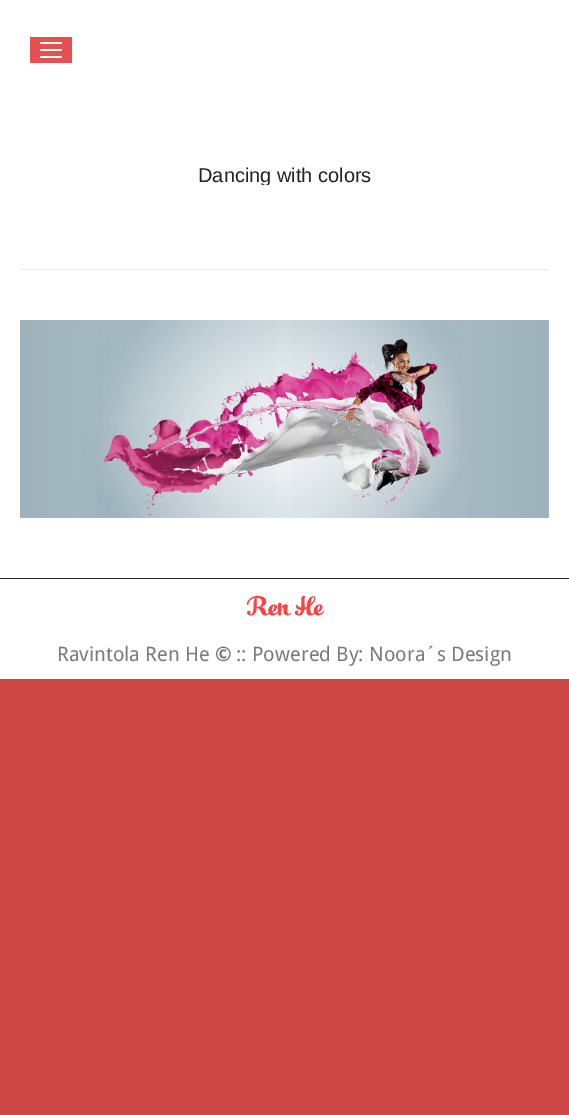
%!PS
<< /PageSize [569 1115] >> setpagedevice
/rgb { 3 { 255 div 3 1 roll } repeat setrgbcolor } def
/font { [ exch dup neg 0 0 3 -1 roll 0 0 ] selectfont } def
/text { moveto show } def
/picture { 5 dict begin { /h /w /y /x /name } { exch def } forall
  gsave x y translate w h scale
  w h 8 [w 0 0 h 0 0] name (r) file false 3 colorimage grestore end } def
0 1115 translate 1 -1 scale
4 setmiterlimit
206 71 71 rgb
0 0 569 1115 rectfill
255 255 255 rgb
0 0 569 679 rectfill
231 80 80 rgb
30 37 42 26 rectfill
255 255 255 rgb
40 42 22 2 rectfill
40 49 22 2 rectfill
40 56 22 2 rectfill
233 233 233 rgb
20 269 529 1 rectfill
(img_01.rgb) 20 320 529 198 picture
34 36 40 rgb
0 578 569 1 rectfill
(img_02.rgb) 246 595 79 21 picture
gsave
198 165 173 20 rectclip
/LiberationSans-Regular 20 font
34 34 34 rgb
(Dancing with colors) 198 182 text
grestore
/DroidSans-Regular 20 font
121 122 127 rgb
(Ravintola Ren He) 57 661 text
/DroidSans-Bold 20 font
(©) 215 661 text
/DroidSans-Regular 20 font
(:: Powered By: Noora´s Design) 236 661 text
showpage
